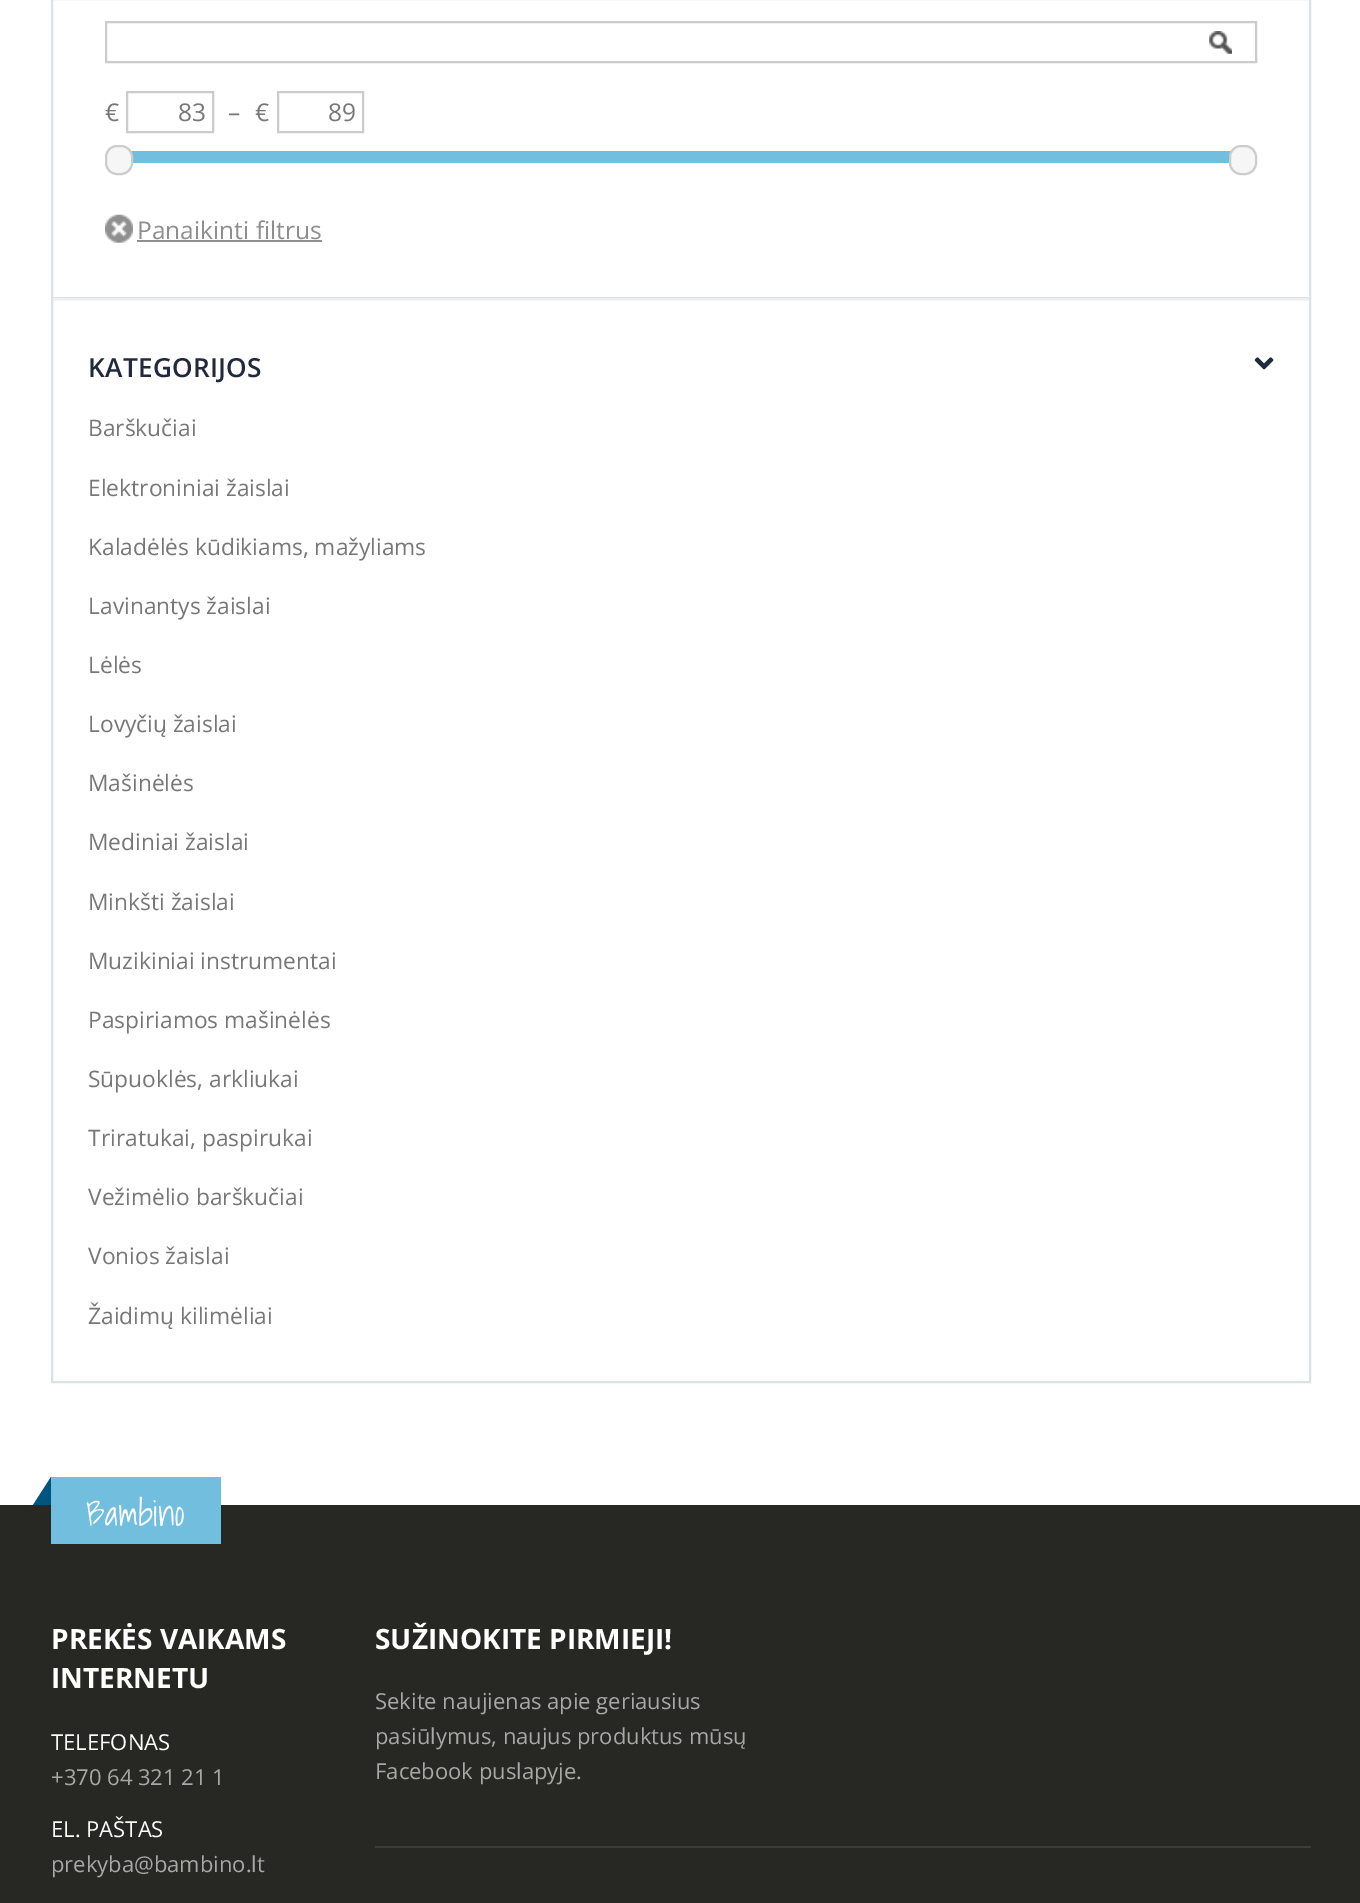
%!PS
<< /PageSize [1360 1903] >> setpagedevice
/rgb { 3 { 255 div 3 1 roll } repeat setrgbcolor } def
/font { [ exch dup neg 0 0 3 -1 roll 0 0 ] selectfont } def
/text { moveto show } def
/roundrect { 5 dict begin { /r /h /w /y /x } { exch def } forall
  x r add y moveto x w add y 2 copy h add r arct x w add y h add x 1 index r arct
  x y h add x y r arct x y 2 copy exch w add exch r arct closepath end } def
/picture { 5 dict begin { /h /w /y /x /name } { exch def } forall
  gsave x y translate w h scale
  w h 8 [w 0 0 h 0 0] name (r) file false 3 colorimage grestore end } def
0 1903 translate 1 -1 scale
4 setmiterlimit
255 255 255 rgb
0 0 1360 1903 rectfill
218 226 230 rgb
2 setlinewidth
52 -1 1258 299 rectstroke
(img_01.rgb) 1209 31 23 23 picture
204 204 204 rgb
106 22 1150 40 rectstroke
127 92 86 40 rectstroke
278 92 85 40 rectstroke
113 190 223 rgb
131 151 1100 12 rectfill
246 246 246 rgb
106 146 26 28 11 roundrect gsave fill grestore
204 204 204 rgb
stroke
246 246 246 rgb
1230 146 26 28 11 roundrect gsave fill grestore
204 204 204 rgb
stroke
(img_02.rgb) 105 214 28 29 picture
142 142 142 rgb
137 240 185 2 rectfill
218 226 230 rgb
52 299 1258 1083 rectstroke
239 239 239 rgb
53 298 1256 2 rectfill
(img_03.rgb) 1254 357 20 13 picture
39 39 35 rgb
0 1505 1360 398 rectfill
113 190 223 rgb
51 1477 170 67 rectfill
0 85 128 rgb
51 1477 moveto 0 28 rlineto -18 0 rlineto closepath fill
61 61 56 rgb
375 1846 936 2 rectfill
/OpenSans-Regular 24.5 font
119 119 119 rgb
(€) 105 121 text
(83) 178 121 text
(–) 228 121 text
(€) 255 121 text
(89) 328 121 text
142 142 142 rgb
(Panaikinti filtrus) 137 239 text
/OpenSans-SemiBold 26.25 font
33 41 60 rgb
88 377 moveto 0.25 0 (KATEGORIJOS) ashow
/OpenSans-Regular 22.75 font
119 119 119 rgb
(Barškučiai) 88 436 text
(Elektroniniai žaislai) 88 496 text
(Kaladėlės kūdikiams, mažyliams) 88 555 text
(Lavinantys žaislai) 88 614 text
(Lėlės) 88 673 text
(Lovyčių žaislai) 88 732 text
(Mašinėlės) 88 791 text
(Mediniai žaislai) 88 850 text
(Minkšti žaislai) 88 910 text
(Muzikiniai instrumentai) 88 969 text
(Paspiriamos mašinėlės) 88 1028 text
(Sūpuoklės, arkliukai) 88 1087 text
(Triratukai, paspirukai) 88 1146 text
(Vežimėlio barškučiai) 88 1205 text
(Vonios žaislai) 88 1264 text
(Žaidimų kilimėliai) 88 1324 text
/ShadowsIntoLight-Light 35 font
255 255 255 rgb
(Bambino) 86 1526 text
/OpenSans-Bold 28 font
(PREKĖS VAIKAMS) 51 1649 text
(INTERNETU) 51 1688 text
/OpenSans-Regular 22 font
(TELEFONAS) 51 1750 text
168 168 168 rgb
(+370 64 321 21 1) 51 1785 text
255 255 255 rgb
(EL. PAŠTAS) 51 1837 text
168 168 168 rgb
(prekyba@bambino.lt) 51 1872 text
/OpenSans-Bold 28 font
255 255 255 rgb
(SUŽINOKITE PIRMIEJI!) 375 1649 text
/OpenSans-Regular 22 font
168 168 168 rgb
(Sekite naujienas apie geriausius) 375 1709 text
(pasiūlymus, naujus produktus mūsų) 375 1744 text
(Facebook puslapyje.) 375 1779 text
showpage
